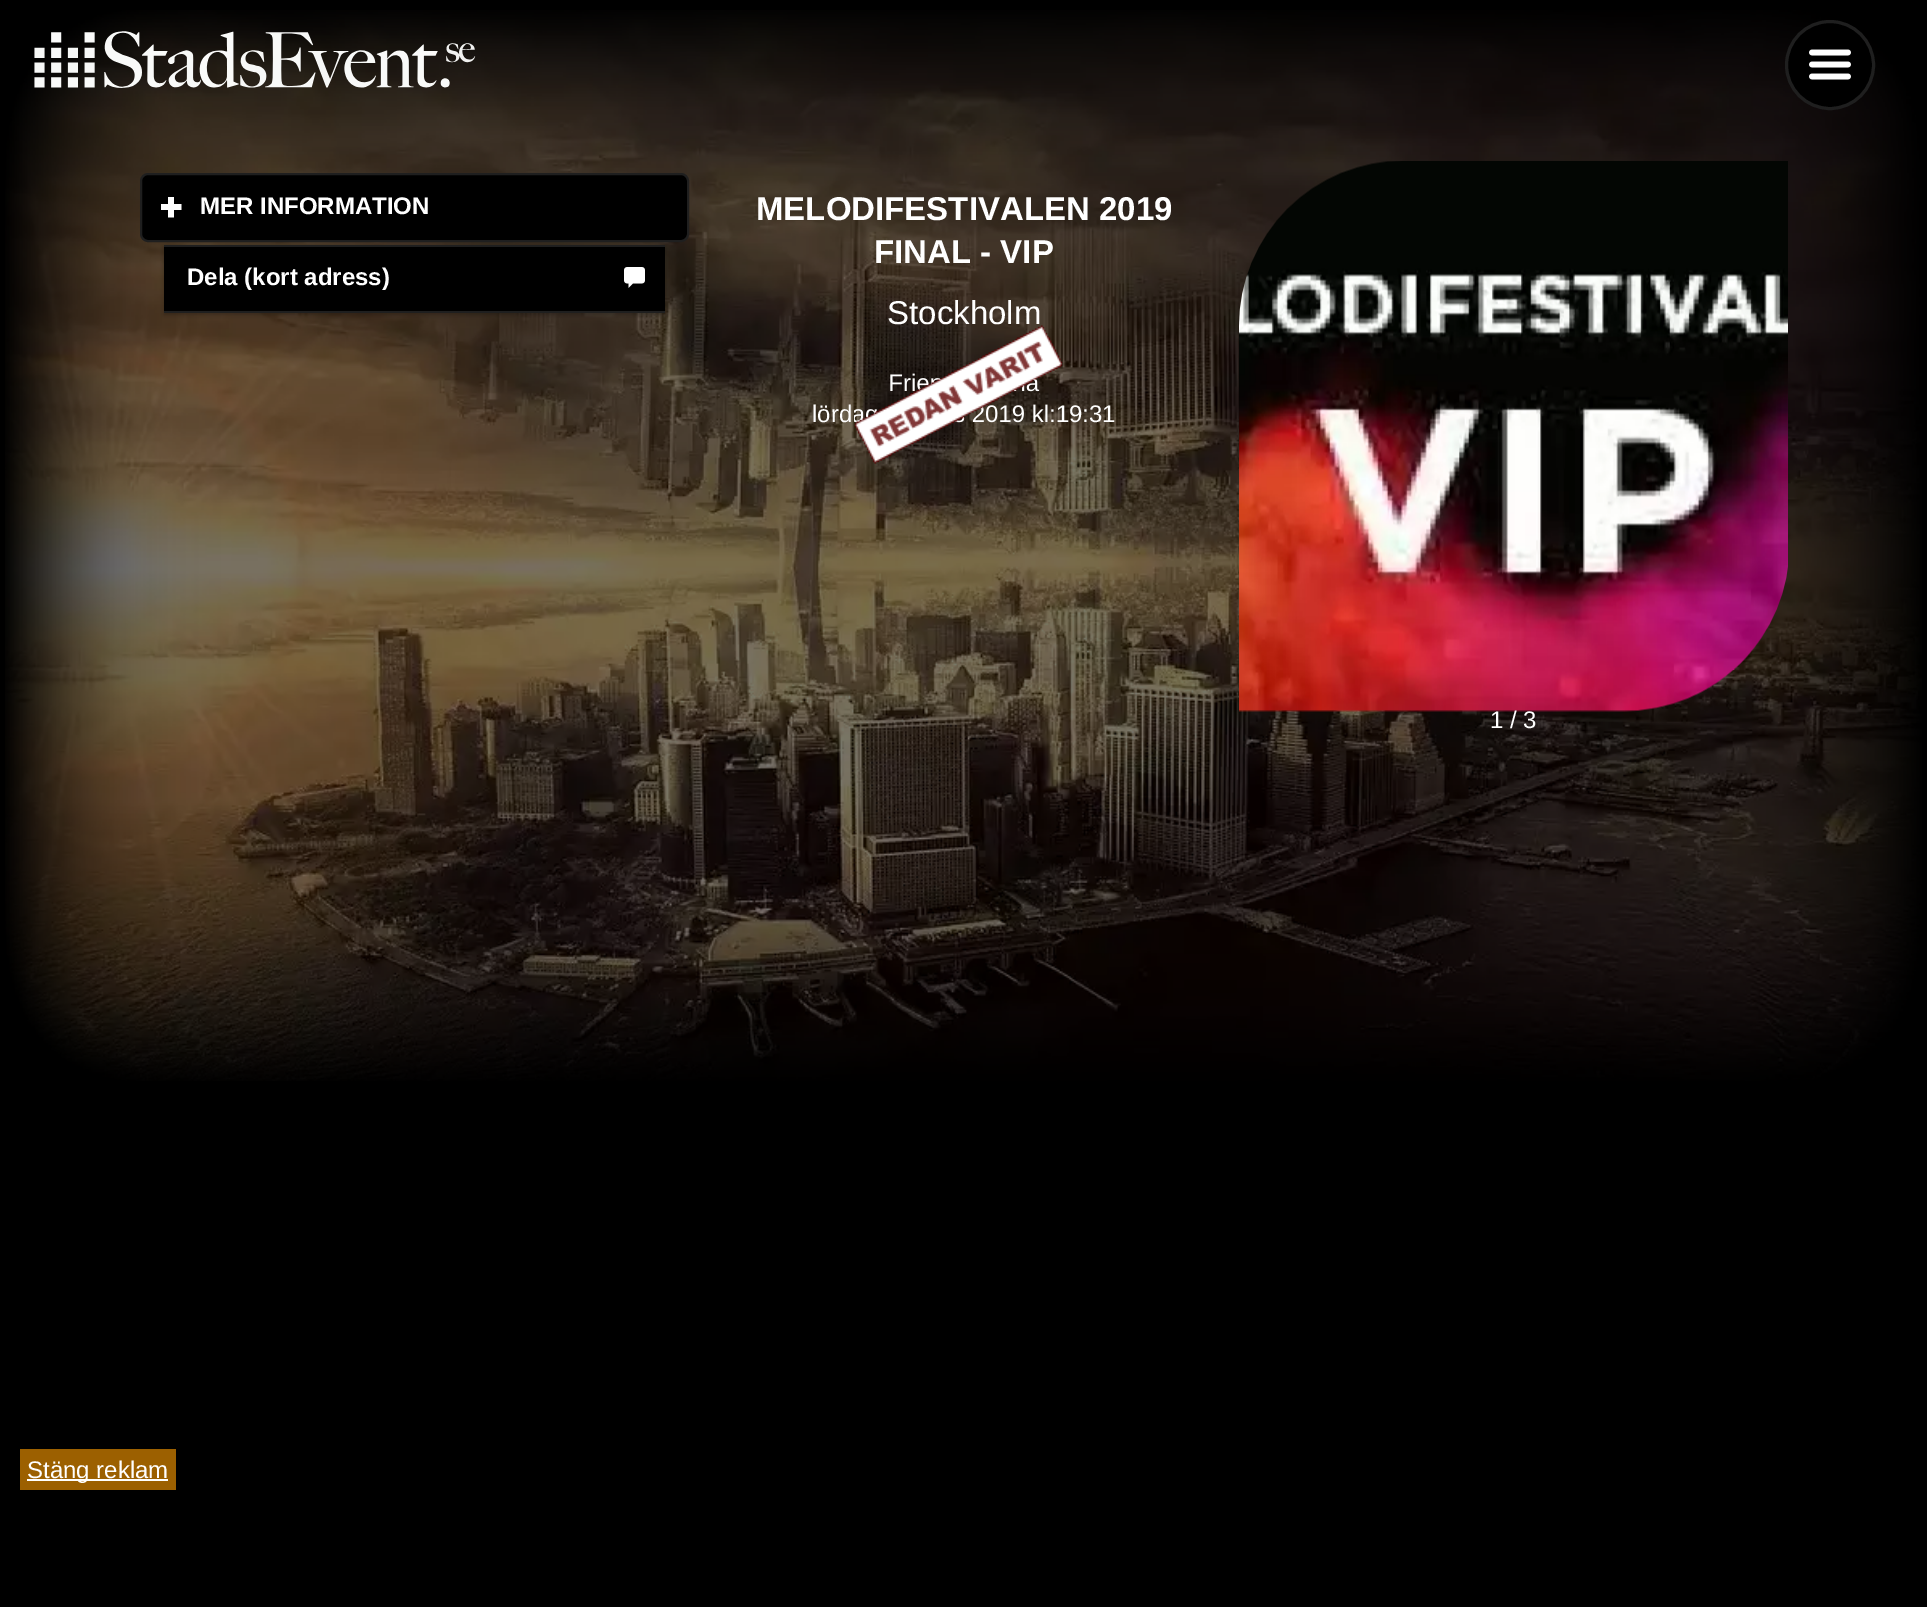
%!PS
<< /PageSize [1927 1607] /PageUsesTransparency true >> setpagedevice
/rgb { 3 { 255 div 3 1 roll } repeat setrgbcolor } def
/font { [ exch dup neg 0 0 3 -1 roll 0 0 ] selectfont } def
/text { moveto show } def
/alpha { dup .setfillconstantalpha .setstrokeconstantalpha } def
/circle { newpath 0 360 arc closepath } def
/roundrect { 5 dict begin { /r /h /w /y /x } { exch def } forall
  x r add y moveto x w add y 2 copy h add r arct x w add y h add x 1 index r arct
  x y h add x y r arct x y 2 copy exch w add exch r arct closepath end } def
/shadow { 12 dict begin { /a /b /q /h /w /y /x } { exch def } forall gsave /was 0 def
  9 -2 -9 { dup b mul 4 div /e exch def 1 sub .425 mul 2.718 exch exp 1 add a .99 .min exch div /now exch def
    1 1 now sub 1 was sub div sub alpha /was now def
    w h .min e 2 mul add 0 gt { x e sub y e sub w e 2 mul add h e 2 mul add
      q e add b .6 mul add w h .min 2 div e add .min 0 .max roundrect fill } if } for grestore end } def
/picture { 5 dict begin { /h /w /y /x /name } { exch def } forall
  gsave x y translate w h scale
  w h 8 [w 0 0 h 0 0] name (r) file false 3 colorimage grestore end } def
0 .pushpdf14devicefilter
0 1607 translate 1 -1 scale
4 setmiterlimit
0 0 0 rgb
0 0 1927 1607 rectfill
(img_01.rgb) 5 10 1917 1071 picture
(img_02.rgb) 34 31 442 57 picture
1830 65 43.5 circle gsave fill grestore
31 31 31 rgb
3 setlinewidth
stroke
(img_03.rgb) 1809 49 42 31 picture
0 0 0 rgb
141 174 547 67 7 roundrect gsave fill grestore
31 31 31 rgb
2 setlinewidth
stroke
(img_04.rgb) 161 197 21 21 picture
0 0 0 rgb
164 248 501 67 0 2 0.25 shadow
164 247 501 64 rectfill
31 31 31 rgb
164 245 501 2 rectfill
164 311 501 2 rectfill
(img_05.rgb) 624 267 21 21 picture
(img_07.rgb) 1239 161 549 551 picture
156 96 0 rgb
20 1449 156 41 rectfill
255 255 255 rgb
27 1479 141 2 rectfill
/LiberationSans-Bold 24 font
(MER INFORMATION) 200 214 text
(Dela \(kort adress\)) 187 285 text
/LiberationSans-Bold 33 font
(MELODIFESTIVALEN 2019) 756 220 text
(FINAL - VIP) 874 263 text
/LiberationSans-Regular 33 font
(Stockholm) 887 324 text
/LiberationSans-Regular 24 font
(Fri) 888 391 text
(lörd) 812 422 text
(019 kl:19:31) 985 422 text
(img_06.rgb) 854 325 209 139 picture
(1 / 3) 1490 728 text
(Stäng reklam) 27 1478 text
.poppdf14devicefilter showpage
